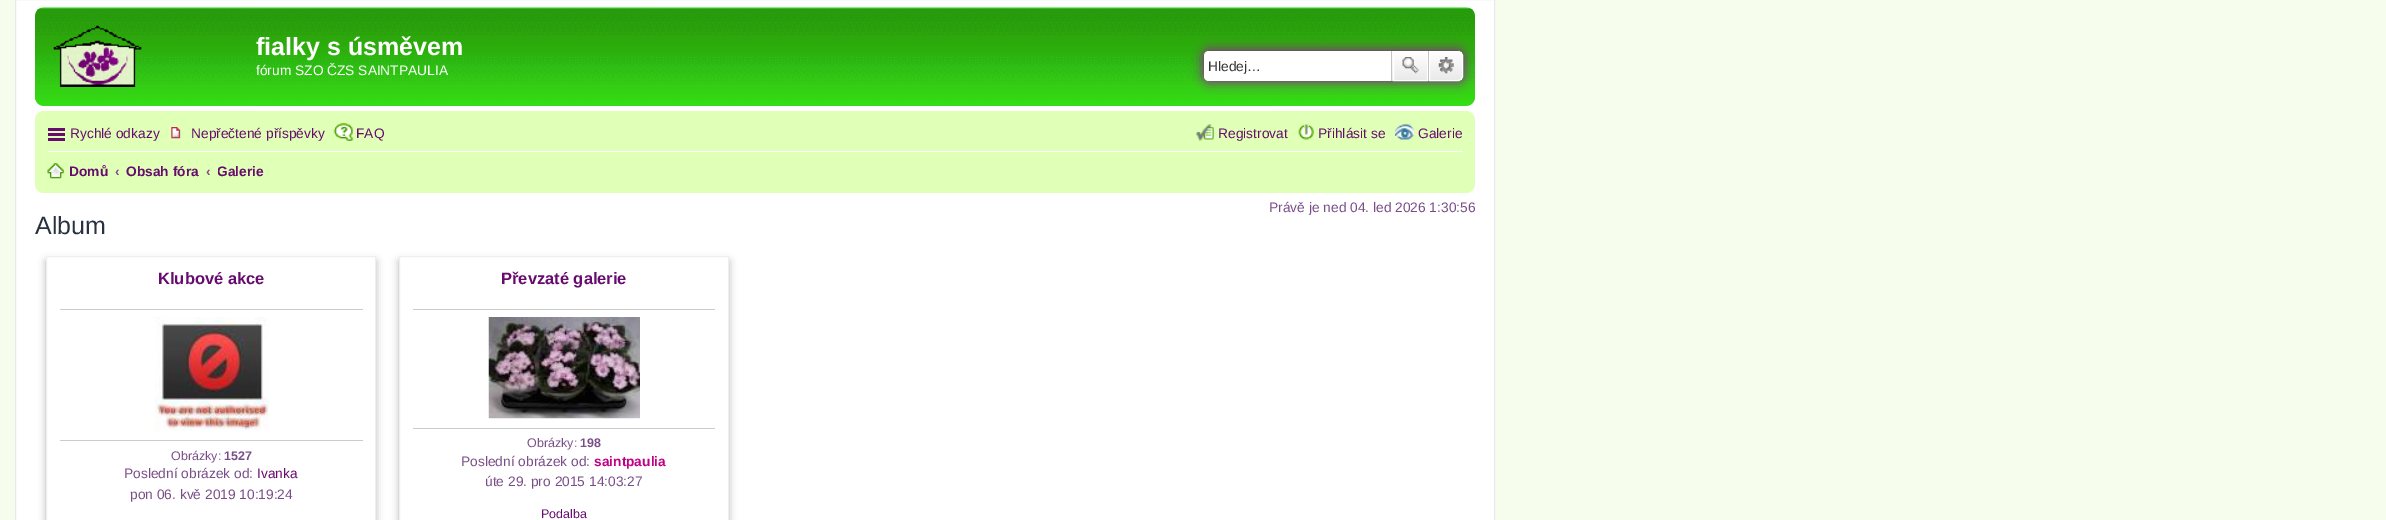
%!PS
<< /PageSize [2386 520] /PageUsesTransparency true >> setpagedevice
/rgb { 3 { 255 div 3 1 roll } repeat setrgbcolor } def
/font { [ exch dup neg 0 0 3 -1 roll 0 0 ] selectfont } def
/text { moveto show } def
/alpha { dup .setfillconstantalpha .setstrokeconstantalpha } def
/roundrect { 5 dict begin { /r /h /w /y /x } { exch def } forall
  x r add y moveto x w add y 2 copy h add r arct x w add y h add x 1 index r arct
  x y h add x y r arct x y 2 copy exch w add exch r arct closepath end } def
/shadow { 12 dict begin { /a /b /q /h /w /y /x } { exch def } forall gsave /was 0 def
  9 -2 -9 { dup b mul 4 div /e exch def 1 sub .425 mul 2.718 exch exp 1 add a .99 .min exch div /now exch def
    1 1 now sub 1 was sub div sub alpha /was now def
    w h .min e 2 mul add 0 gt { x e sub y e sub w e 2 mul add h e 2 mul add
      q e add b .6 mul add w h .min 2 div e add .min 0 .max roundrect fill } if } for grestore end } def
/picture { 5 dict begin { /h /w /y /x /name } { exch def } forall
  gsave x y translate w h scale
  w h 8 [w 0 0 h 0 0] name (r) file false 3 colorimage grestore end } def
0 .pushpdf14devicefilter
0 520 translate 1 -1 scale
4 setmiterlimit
247 253 236 rgb
0 0 2386 520 rectfill
255 255 255 rgb
15.5 -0.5 moveto 1479 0 rlineto 0 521 rlineto -1479 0 rlineto closepath gsave fill grestore
230 233 237 rgb
stroke
57 219 34 rgb
35 8 1440 98 9 roundrect fill
(img_01.rgb) 35 7 1440 99 picture
(img_02.rgb) 53 25 89 62 picture
164 0 176 rgb
1204 51 259 30 5 6 1 shadow
255 255 255 rgb
1209 51 moveto 182 0 rlineto 0 30 rlineto -182 0 rlineto -3 0 -5 -2 -5 -5 rcurveto 0 -20 rlineto 0 -3 2 -5 5 -5 rcurveto closepath fill
gsave 1392 51 moveto 35 0 rlineto 0 30 rlineto -35 0 rlineto closepath clip newpath
<< /ShadingType 2 /ColorSpace /DeviceRGB /Coords [1410 51 1410 81] /Extend [true true] /Function << /FunctionType 2 /Domain [0 1] /C0 [1 1 1] /C1 [0.914 0.914 0.914] /N 1 >> >> shfill grestore
1393.5 51.5 34 29 rectstroke
199 195 191 rgb
1428 51 1 30 rectfill
1391 51 1 30 rectfill
(img_03.rgb) 1402 57 17 17 picture
gsave 1429.5 51.5 moveto 28.5 0 rlineto 2.5 0 4.5 2 4.5 4.5 rcurveto 0 20 rlineto 0 2.5 -2 4.5 -4.5 4.5 rcurveto -28.5 0 rlineto closepath clip newpath
<< /ShadingType 2 /ColorSpace /DeviceRGB /Coords [1446 51 1446 81] /Extend [true true] /Function << /FunctionType 2 /Domain [0 1] /C0 [1 1 1] /C1 [0.914 0.914 0.914] /N 1 >> >> shfill grestore
255 255 255 rgb
1429.5 51.5 moveto 28.5 0 rlineto 2.5 0 4.5 2 4.5 4.5 rcurveto 0 20 rlineto 0 2.5 -2 4.5 -4.5 4.5 rcurveto -28.5 0 rlineto closepath stroke
(img_04.rgb) 1438 57 16 17 picture
224 255 183 rgb
35 111 1440 82 9 roundrect fill
103 11 111 rgb
48 128 17 3 rectfill
48 133 17 3 rectfill
48 138 17 3 rectfill
(img_05.rgb) 171 127 10 12 picture
(img_06.rgb) 333 123 21 18 picture
(img_07.rgb) 1196 124 18 17 picture
(img_08.rgb) 1298 124 16 16 picture
(img_09.rgb) 1395 124 19 16 picture
255 255 255 rgb
48 151 1415 1 rectfill
(img_10.rgb) 47 163 17 16 picture
0 0 0 rgb
46 261 330 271 0 4 0.3 shadow
255 255 255 rgb
46.5 256.5 moveto 329 0 rlineto 0 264 rlineto -329 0 rlineto closepath gsave fill grestore
239 239 239 rgb
stroke
204 204 204 rgb
60 309 303 1 rectfill
(img_11.rgb) 155 317 114 114 picture
60 440 303 1 rectfill
0 0 0 rgb
399 261 330 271 0 4 0.3 shadow
255 255 255 rgb
399.5 256.5 moveto 329 0 rlineto 0 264 rlineto -329 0 rlineto closepath gsave fill grestore
239 239 239 rgb
stroke
204 204 204 rgb
413 309 302 1 rectfill
(img_12.rgb) 488 317 152 102 picture
413 428 302 1 rectfill
/LiberationSans-Bold 25 font
255 255 255 rgb
(fialky s úsměvem) 256 55 text
/LiberationSans-Regular 13.75 font
(fórum SZO ČZS SAINTPAULIA) 256 75 text
51 51 51 rgb
(Hledej…) 1208 71 text
103 11 111 rgb
(Rychlé odkazy) 70 138 text
(Nepřečtené příspěvky) 191 138 text
(FAQ) 356 138 text
(Registrovat) 1218 138 text
(Přihlásit se) 1318 138 text
(Galerie) 1418 138 text
/LiberationSans-Bold 13.75 font
(Domů) 69 176 text
121 78 135 rgb
(‹) 115 176 text
103 11 111 rgb
(Obsah fóra) 126 176 text
121 78 135 rgb
(‹) 206 176 text
gsave
218 156 46 30 rectclip
103 11 111 rgb
(Galerie) 217 176 text
grestore
/LiberationSans-Regular 13.75 font
(Právě je ned 04. led 2026 1:30:56) 1269 212 text
/LiberationSans-Regular 25 font
40 49 63 rgb
(Album) 35 234 text
/LiberationSans-Bold 16.5 font
103 11 111 rgb
(Klubové akce) 158 284 text
/LiberationSans-Regular 12.5 font
121 78 135 rgb
(Obrázky:) 171 460 text
/LiberationSans-Bold 12.5 font
(1527) 224 460 text
/LiberationSans-Regular 13.75 font
(Poslední obrázek od:) 124 478 text
103 11 111 rgb
(Ivanka) 257 478 text
121 78 135 rgb
(pon 06. kvě 2019 10:19:24) 130 499 text
/LiberationSans-Bold 16.5 font
103 11 111 rgb
(Převzaté galerie) 501 284 text
/LiberationSans-Regular 12.5 font
121 78 135 rgb
(Obrázky:) 527 447 text
/LiberationSans-Bold 12.5 font
(198) 580 447 text
/LiberationSans-Regular 13.75 font
(Poslední obrázek od:) 461 466 text
/LiberationSans-Bold 13.75 font
193 0 134 rgb
(saintpaulia) 594 466 text
/LiberationSans-Regular 13.75 font
121 78 135 rgb
(úte 29. pro 2015 14:03:27) 485 486 text
/LiberationSans-Regular 12.5 font
103 11 111 rgb
(Podalba) 541 518 text
.poppdf14devicefilter showpage
